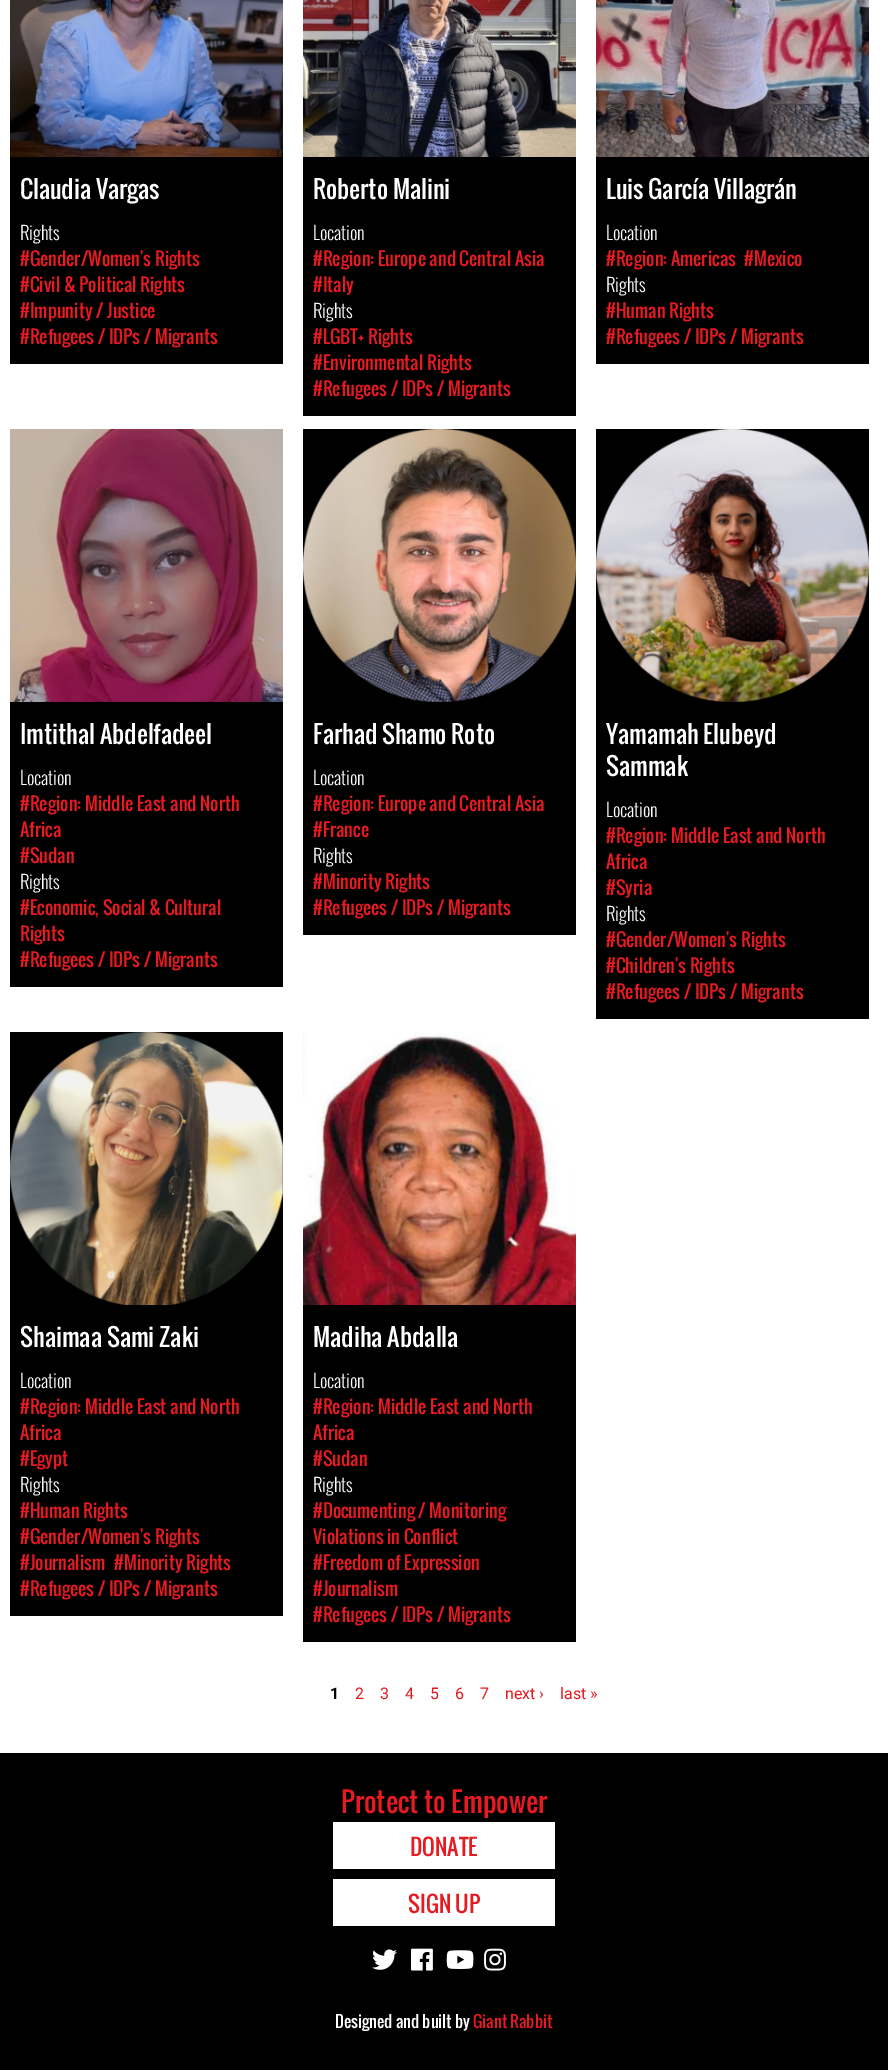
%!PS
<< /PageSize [888 2070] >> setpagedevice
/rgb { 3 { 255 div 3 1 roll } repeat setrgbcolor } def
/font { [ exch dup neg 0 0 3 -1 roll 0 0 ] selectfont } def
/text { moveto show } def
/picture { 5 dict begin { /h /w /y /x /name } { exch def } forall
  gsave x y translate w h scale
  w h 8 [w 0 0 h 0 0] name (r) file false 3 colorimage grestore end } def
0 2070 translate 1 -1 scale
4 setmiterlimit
0 0 0 rgb
0 0 888 2070 rectfill
255 255 255 rgb
0 0 888 1753 rectfill
0 0 0 rgb
10 157 273 207 rectfill
(img_01.rgb) 10 0 273 157 picture
303 157 273 259 rectfill
(img_02.rgb) 303 0 273 157 picture
596 157 273 207 rectfill
(img_03.rgb) 596 0 273 157 picture
10 702 273 285 rectfill
(img_04.rgb) 10 429 273 273 picture
303 702 273 233 rectfill
(img_05.rgb) 303 429 273 273 picture
596 702 273 317 rectfill
(img_06.rgb) 596 429 273 273 picture
10 1305 273 311 rectfill
(img_07.rgb) 10 1032 273 273 picture
303 1305 273 337 rectfill
(img_08.rgb) 303 1032 273 273 picture
255 255 255 rgb
333 1822 222 47 rectfill
333 1879 222 47 rectfill
(img_09.rgb) 372 1949 25 21 picture
(img_10.rgb) 411 1948 22 23 picture
(img_11.rgb) 446 1950 28 19 picture
(img_12.rgb) 484 1948 22 23 picture
/Oswald-Regular 24 font
(Claudia Vargas) 20 199 text
/Oswald-Light 18 font
(Rights) 20 240 text
/Oswald-Regular 18 font
230 26 33 rgb
(#Gender/Women's Rights) 20 266 text
(#Civil & Political Rights) 20 292 text
(#Impunity / Justice) 20 318 text
(#Refugees / IDPs / Migrants) 20 344 text
/Oswald-Regular 24 font
255 255 255 rgb
(Roberto Malini) 313 199 text
/Oswald-Light 18 font
(Location) 313 240 text
/Oswald-Regular 18 font
230 26 33 rgb
(#Region: Europe and Central Asia) 313 266 text
(#Italy) 313 292 text
/Oswald-Light 18 font
255 255 255 rgb
(Rights) 313 318 text
/Oswald-Regular 18 font
230 26 33 rgb
(#LGBT+ Rights) 313 344 text
(#Environmental Rights) 313 370 text
(#Refugees / IDPs / Migrants) 313 396 text
/Oswald-Regular 24 font
255 255 255 rgb
(Luis García Villagrán) 606 199 text
/Oswald-Light 18 font
(Location) 606 240 text
/Oswald-Regular 18 font
230 26 33 rgb
(#Region: Americas) 606 266 text
(#Mexico) 744 266 text
/Oswald-Light 18 font
255 255 255 rgb
(Rights) 606 292 text
/Oswald-Regular 18 font
230 26 33 rgb
(#Human Rights) 606 318 text
(#Refugees / IDPs / Migrants) 606 344 text
/Oswald-Regular 24 font
255 255 255 rgb
(Imtithal Abdelfadeel) 20 744 text
/Oswald-Light 18 font
(Location) 20 785 text
/Oswald-Regular 18 font
230 26 33 rgb
(#Region: Middle East and North) 20 811 text
(Africa) 20 837 text
(#Sudan) 20 863 text
/Oswald-Light 18 font
255 255 255 rgb
(Rights) 20 889 text
/Oswald-Regular 18 font
230 26 33 rgb
(#Economic, Social & Cultural) 20 915 text
(Rights) 20 941 text
(#Refugees / IDPs / Migrants) 20 967 text
/Oswald-Regular 24 font
255 255 255 rgb
(Farhad Shamo Roto) 313 744 text
/Oswald-Light 18 font
(Location) 313 785 text
/Oswald-Regular 18 font
230 26 33 rgb
(#Region: Europe and Central Asia) 313 811 text
(#France) 313 837 text
/Oswald-Light 18 font
255 255 255 rgb
(Rights) 313 863 text
/Oswald-Regular 18 font
230 26 33 rgb
(#Minority Rights) 313 889 text
(#Refugees / IDPs / Migrants) 313 915 text
/Oswald-Regular 24 font
255 255 255 rgb
(Yamamah Elubeyd) 606 744 text
(Sammak) 606 776 text
/Oswald-Light 18 font
(Location) 606 817 text
/Oswald-Regular 18 font
230 26 33 rgb
(#Region: Middle East and North) 606 843 text
(Africa) 606 869 text
(#Syria) 606 895 text
/Oswald-Light 18 font
255 255 255 rgb
(Rights) 606 921 text
/Oswald-Regular 18 font
230 26 33 rgb
(#Gender/Women's Rights) 606 947 text
(#Children's Rights) 606 973 text
(#Refugees / IDPs / Migrants) 606 999 text
/Oswald-Regular 24 font
255 255 255 rgb
(Shaimaa Sami Zaki) 20 1347 text
/Oswald-Light 18 font
(Location) 20 1388 text
/Oswald-Regular 18 font
230 26 33 rgb
(#Region: Middle East and North) 20 1414 text
(Africa) 20 1440 text
(#Egypt) 20 1466 text
/Oswald-Light 18 font
255 255 255 rgb
(Rights) 20 1492 text
/Oswald-Regular 18 font
230 26 33 rgb
(#Human Rights) 20 1518 text
(#Gender/Women's Rights) 20 1544 text
(#Journalism) 20 1570 text
(#Minority Rights) 114 1570 text
(#Refugees / IDPs / Migrants) 20 1596 text
/Oswald-Regular 24 font
255 255 255 rgb
(Madiha Abdalla) 313 1347 text
/Oswald-Light 18 font
(Location) 313 1388 text
/Oswald-Regular 18 font
230 26 33 rgb
(#Region: Middle East and North) 313 1414 text
(Africa) 313 1440 text
(#Sudan) 313 1466 text
/Oswald-Light 18 font
255 255 255 rgb
(Rights) 313 1492 text
/Oswald-Regular 18 font
230 26 33 rgb
(#Documenting / Monitoring) 313 1518 text
(Violations in Conflict) 313 1544 text
(#Freedom of Expression) 313 1570 text
(#Journalism) 313 1596 text
(#Refugees / IDPs / Migrants) 313 1622 text
/Roboto-Bold 16 font
0 0 0 rgb
(1) 330 1699 text
/Roboto-Regular 16 font
230 26 33 rgb
(2) 355 1699 text
(3) 380 1699 text
(4) 405 1699 text
(5) 430 1699 text
(6) 455 1699 text
(7) 480 1699 text
(next ›) 505 1699 text
(last ») 560 1699 text
/Oswald-Regular 27 font
(Protect to Empower) 341 1813 text
/Oswald-Regular 22 font
(DONATE) 410 1856 text
(SIGN UP) 408 1913 text
/Oswald-Regular 16 font
255 255 255 rgb
(Designed and built by) 335 2028 text
230 26 33 rgb
(Giant Rabbit) 473 2028 text
showpage
